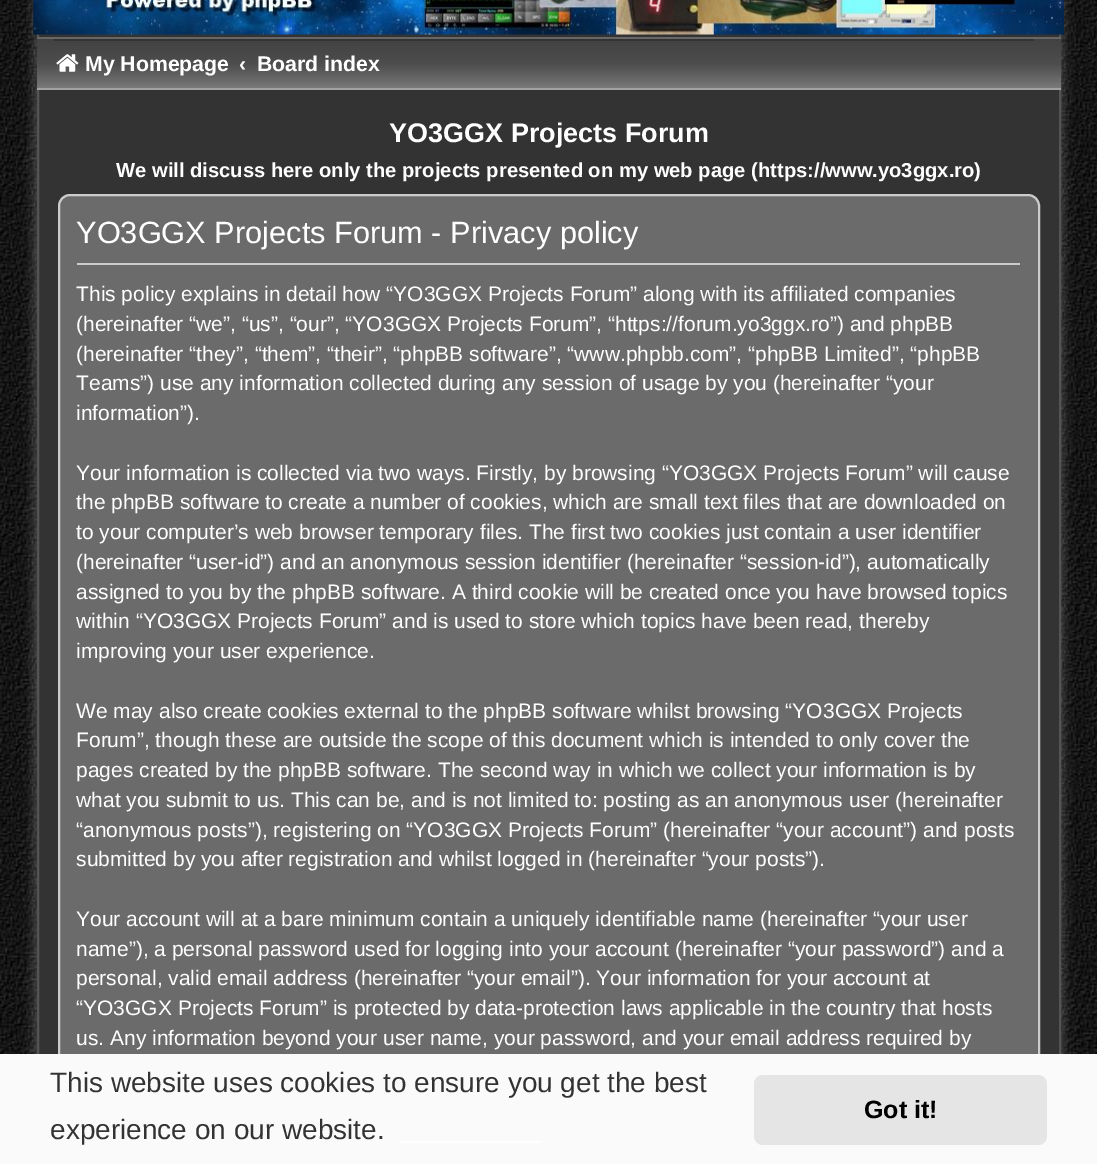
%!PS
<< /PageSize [1097 1164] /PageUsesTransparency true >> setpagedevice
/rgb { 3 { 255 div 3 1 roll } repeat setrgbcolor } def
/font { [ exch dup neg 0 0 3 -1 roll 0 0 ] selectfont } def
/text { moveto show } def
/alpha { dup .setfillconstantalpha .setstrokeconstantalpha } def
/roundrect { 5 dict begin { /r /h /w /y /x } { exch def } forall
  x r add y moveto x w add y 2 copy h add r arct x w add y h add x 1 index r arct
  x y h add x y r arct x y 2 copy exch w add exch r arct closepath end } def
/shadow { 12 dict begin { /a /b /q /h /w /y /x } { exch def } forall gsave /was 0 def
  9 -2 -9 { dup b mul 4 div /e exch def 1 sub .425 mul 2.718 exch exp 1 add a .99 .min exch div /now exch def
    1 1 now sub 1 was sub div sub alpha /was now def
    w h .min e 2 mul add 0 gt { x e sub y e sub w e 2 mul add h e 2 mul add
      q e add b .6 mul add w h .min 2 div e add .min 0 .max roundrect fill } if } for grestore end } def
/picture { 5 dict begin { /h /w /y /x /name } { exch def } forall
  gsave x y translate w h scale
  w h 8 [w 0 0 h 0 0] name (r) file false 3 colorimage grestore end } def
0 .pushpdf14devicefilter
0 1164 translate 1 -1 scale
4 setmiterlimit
255 255 255 rgb
0 0 1097 1164 rectfill
(img_01.rgb) 0 0 1097 1054 picture
33 -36 1031 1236 21 5 0.2 shadow
51 51 51 rgb
39 34 1020 1020 rectfill
83 84 83 rgb
2 setlinewidth
38 -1 1022 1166 rectstroke
(img_02.rgb) 33 0 1031 35 picture
gsave 37 39 moveto 1024 0 rlineto 0 49 rlineto -1024 0 rlineto closepath clip newpath
<< /ShadingType 2 /ColorSpace /DeviceRGB /Coords [549 38 549 114] /Extend [true true] /Function << /FunctionType 3 /Domain [0 1] /Functions [<< /FunctionType 2 /Domain [0 1] /C0 [0.255 0.255 0.255] /C1 [0.306 0.306 0.306] /N 1 >> << /FunctionType 2 /Domain [0 1] /C0 [0.306 0.306 0.306] /C1 [0.529 0.529 0.529] /N 1 >> << /FunctionType 2 /Domain [0 1] /C0 [0.529 0.529 0.529] /C1 [0.98 0.98 0.98] /N 1 >>] /Bounds [0.35 0.76] /Encode [0 1 0 1 0 1] >> >> shfill grestore
102 103 102 rgb
37 37 1024 2 rectfill
161 162 161 rgb
37 88 1024 2 rectfill
51 51 51 rgb
54 39 980 2 rectfill
(img_03.rgb) 56 54 23 18 picture
107 107 107 rgb
59 195 980 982 11 roundrect gsave fill grestore
204 204 204 rgb
stroke
77 263 943 2 rectfill
250 250 250 rgb
0 1054 1097 110 rectfill
254 254 254 rgb
399 1141 142 2 rectfill
229 229 229 rgb
754 1075 293 70 9 roundrect fill
/LiberationSans-Bold 21.25 font
255 255 255 rgb
(My Homepage) 85 71 text
(‹) 239 71 text
(Board index) 257 71 text
/LiberationSans-Bold 27 font
(YO3GGX Projects Forum) 389 142 text
/LiberationSans-Bold 20.2 font
(We will discuss here only the projects presented on my web page \(https://www.yo3ggx.ro\)) 116 177 text
/LiberationSans-Regular 30.75 font
(YO3GGX Projects Forum - Privacy policy) 76 243 text
/LiberationSans-Regular 21 font
(This policy explains in detail how “YO3GGX Projects Forum” along with its affiliated companies) 76 301 text
(\(hereinafter “we”, “us”, “our”, “YO3GGX Projects Forum”, “https://forum.yo3ggx.ro”\) and phpBB) 76 331 text
(\(hereinafter “they”, “them”, “their”, “phpBB software”, “www.phpbb.com”, “phpBB Limited”, “phpBB) 76 361 text
(Teams”\) use any information collected during any session of usage by you \(hereinafter “your) 76 390 text
(information”\).) 76 420 text
(Your information is collected via two ways. Firstly, by browsing “YO3GGX Projects Forum” will cause) 76 480 text
(the phpBB software to create a number of cookies, which are small text files that are downloaded on) 76 509 text
(to your computer’s web browser temporary files. The first two cookies just contain a user identifier) 76 539 text
(\(hereinafter “user-id”\) and an anonymous session identifier \(hereinafter “session-id”\), automatically) 76 569 text
(assigned to you by the phpBB software. A third cookie will be created once you have browsed topics) 76 599 text
(within “YO3GGX Projects Forum” and is used to store which topics have been read, thereby) 76 628 text
(improving your user experience.) 76 658 text
(We may also create cookies external to the phpBB software whilst browsing “YO3GGX Projects) 76 718 text
(Forum”, though these are outside the scope of this document which is intended to only cover the) 76 747 text
(pages created by the phpBB software. The second way in which we collect your information is by) 76 777 text
(what you submit to us. This can be, and is not limited to: posting as an anonymous user \(hereinafter) 76 807 text
(“anonymous posts”\), registering on “YO3GGX Projects Forum” \(hereinafter “your account”\) and posts) 76 837 text
(submitted by you after registration and whilst logged in \(hereinafter “your posts”\).) 76 866 text
(Your account will at a bare minimum contain a uniquely identifiable name \(hereinafter “your user) 76 926 text
(name”\), a personal password used for logging into your account \(hereinafter “your password”\) and a) 76 956 text
(personal, valid email address \(hereinafter “your email”\). Your information for your account at) 76 985 text
(“YO3GGX Projects Forum” is protected by data-protection laws applicable in the country that hosts) 76 1015 text
(us. Any information beyond your user name, your password, and your email address required by) 76 1045 text
/LiberationSans-Regular 28 font
51 51 51 rgb
(This website uses cookies to ensure you get the best) 50 1092 text
(experience on our website.) 50 1139 text
/LiberationSans-Bold 25 font
0 0 0 rgb
(Got it!) 864 1118 text
.poppdf14devicefilter showpage
